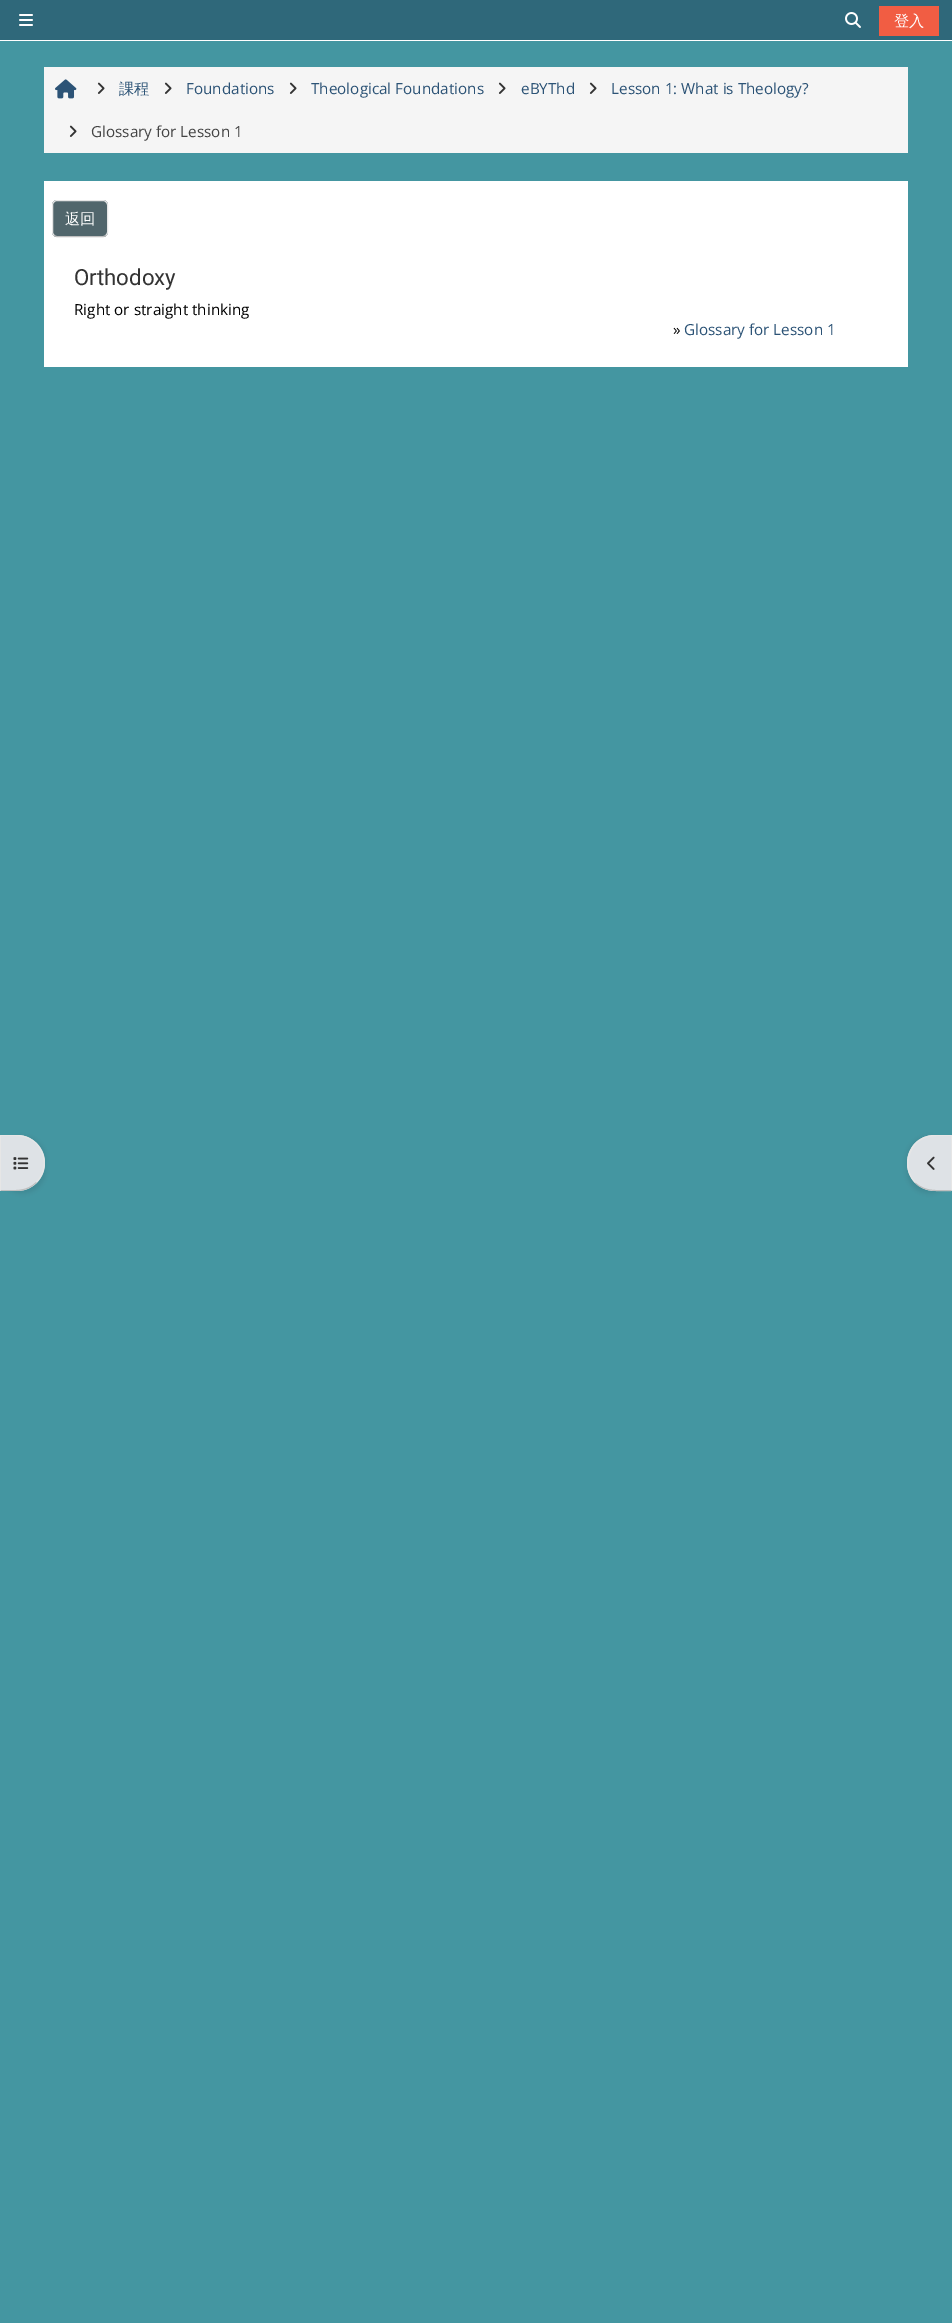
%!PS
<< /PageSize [952 2323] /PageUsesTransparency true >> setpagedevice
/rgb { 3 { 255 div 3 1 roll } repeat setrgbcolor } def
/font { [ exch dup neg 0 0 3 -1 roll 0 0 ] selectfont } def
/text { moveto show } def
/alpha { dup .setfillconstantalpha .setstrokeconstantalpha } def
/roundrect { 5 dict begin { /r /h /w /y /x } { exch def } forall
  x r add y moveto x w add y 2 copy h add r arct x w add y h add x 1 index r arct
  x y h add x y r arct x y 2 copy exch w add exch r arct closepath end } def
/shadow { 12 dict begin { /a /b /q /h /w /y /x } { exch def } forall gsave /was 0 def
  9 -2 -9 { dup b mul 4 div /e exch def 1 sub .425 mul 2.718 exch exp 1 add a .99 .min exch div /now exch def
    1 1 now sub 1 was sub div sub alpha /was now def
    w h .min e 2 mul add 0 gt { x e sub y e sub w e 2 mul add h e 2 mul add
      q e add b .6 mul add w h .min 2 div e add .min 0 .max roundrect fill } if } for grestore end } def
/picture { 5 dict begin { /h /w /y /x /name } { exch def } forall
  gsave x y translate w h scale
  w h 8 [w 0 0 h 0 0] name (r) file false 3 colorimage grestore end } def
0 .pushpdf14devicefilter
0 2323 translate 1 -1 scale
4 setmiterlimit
68 150 161 rgb
0 0 952 2323 rectfill
47 104 122 rgb
0 0 952 40 rectfill
255 255 255 rgb
0 40 952 1 rectfill
(img_01.rgb) 19 14 14 12 picture
(img_02.rgb) 845 12 16 16 picture
241 93 67 rgb
879 6 60 30 rectfill
245 245 245 rgb
44 67 864 86 rectfill
(img_03.rgb) 55 79 22 20 picture
(img_04.rgb) 97 82 8 12 picture
(img_04.rgb) 164 82 8 12 picture
(img_04.rgb) 289 82 8 12 picture
(img_04.rgb) 498 82 8 12 picture
(img_04.rgb) 589 82 8 12 picture
(img_04.rgb) 69 125 8 12 picture
255 255 255 rgb
44 181 864 186 rectfill
81 102 108 rgb
52 200 56 37 5 roundrect fill
191 191 191 rgb
106 235 moveto -0.5 1 -2 1.5 -3 1.5 rcurveto -46 0 rlineto -1 0 -2.5 -0.5 -3 -1.5 rcurveto stroke
230 230 230 rgb
54 235 moveto -1 -0.5 -1.5 -2 -1.5 -3 rcurveto 0 -27 rlineto 0 -1 0.5 -2.5 1.5 -3 rcurveto 0.5 -1 2 -1.5 3 -1.5 rcurveto 46 0 rlineto 1 0 2.5 0.5 3 1.5 rcurveto 1 0.5 1.5 2 1.5 3 rcurveto 0 27 rlineto 0 1 -0.5 2.5 -1.5 3 rcurveto stroke
0 0 0 rgb
0 1137 45 56 28 2 0.07 shadow
222 226 230 rgb
0 1135 moveto 17 0 rlineto 15.5 0 28 12.5 28 28 rcurveto 0 15.5 -12.5 28 -28 28 rcurveto -17 0 rlineto closepath fill
230 230 230 rgb
0 1135 moveto 1 1 rlineto 12.5 0 25.5 -2 35 8 rcurveto 0.5 -0.5 rlineto -5 -5.5 -12 -8.5 -19.5 -8.5 rcurveto closepath fill
36.5 1143.5 moveto 11 11 11 28 0 39 rcurveto -0.5 -0.5 rlineto 10.5 -10.5 10.5 -27.5 0 -38 rcurveto closepath fill
191 191 191 rgb
17 1191 moveto 7.5 0 14.5 -3 19.5 -8.5 rcurveto -0.5 -0.5 rlineto -9.5 10 -22.5 8 -35 8 rcurveto -1 1 rlineto closepath fill
230 230 230 rgb
1 1136 moveto -1 -1 rlineto 0 56 rlineto 1 -1 rlineto closepath fill
(img_05.rgb) 13 1157 16 13 picture
0 0 0 rgb
907 1137 45 56 28 2 0.07 shadow
222 226 230 rgb
935 1135 moveto 17 0 rlineto 0 56 rlineto -17 0 rlineto -15.5 0 -28 -12.5 -28 -28 rcurveto 0 -15.5 12.5 -28 28 -28 rcurveto closepath fill
230 230 230 rgb
935 1135 moveto -8.5 0 -15 3 -20 8 rcurveto 1 1 rlineto 9.5 -10 22.5 -8 35 -8 rcurveto 1 -1 rlineto closepath fill
952 1135 moveto -1 1 rlineto 0 54 rlineto 1 1 rlineto closepath fill
191 191 191 rgb
952 1191 moveto -13 0 -27 2 -37 -8 rcurveto 0.5 -0.5 rlineto 9.5 9.5 23.5 7.5 35.5 7.5 rcurveto closepath fill
230 230 230 rgb
915 1143 moveto -10 10.5 -11 29 0 40 rcurveto 0.5 -0.5 rlineto -10 -10.5 -9 -28.5 0.5 -38.5 rcurveto closepath fill
(img_06.rgb) 927 1156 8 14 picture
/WenQuanYiZenHei-Medium 15.25 font
255 255 255 rgb
(登入) 894 26 text
44 83 118 rgb
(課程) 119 94 text
/OpenSans-Regular 15.25 font
(Foundations) 186 94 text
(Theological Foundations) 311 94 text
(eBYThd) 521 94 text
(Lesson 1: What is Theology?) 611 94 text
68 68 68 rgb
(Glossary for Lesson 1) 91 137 text
/WenQuanYiZenHei-Medium 15.25 font
255 255 255 rgb
(返回) 65 224 text
/Roboto-Regular 22.25 font
51 51 51 rgb
(Orthodoxy) 74 285 text
/OpenSans-Regular 15.25 font
0 0 0 rgb
(Right or straight thinking) 74 315 text
(») 673 335 text
44 83 118 rgb
(Glossary for Lesson 1) 684 335 text
.poppdf14devicefilter showpage
